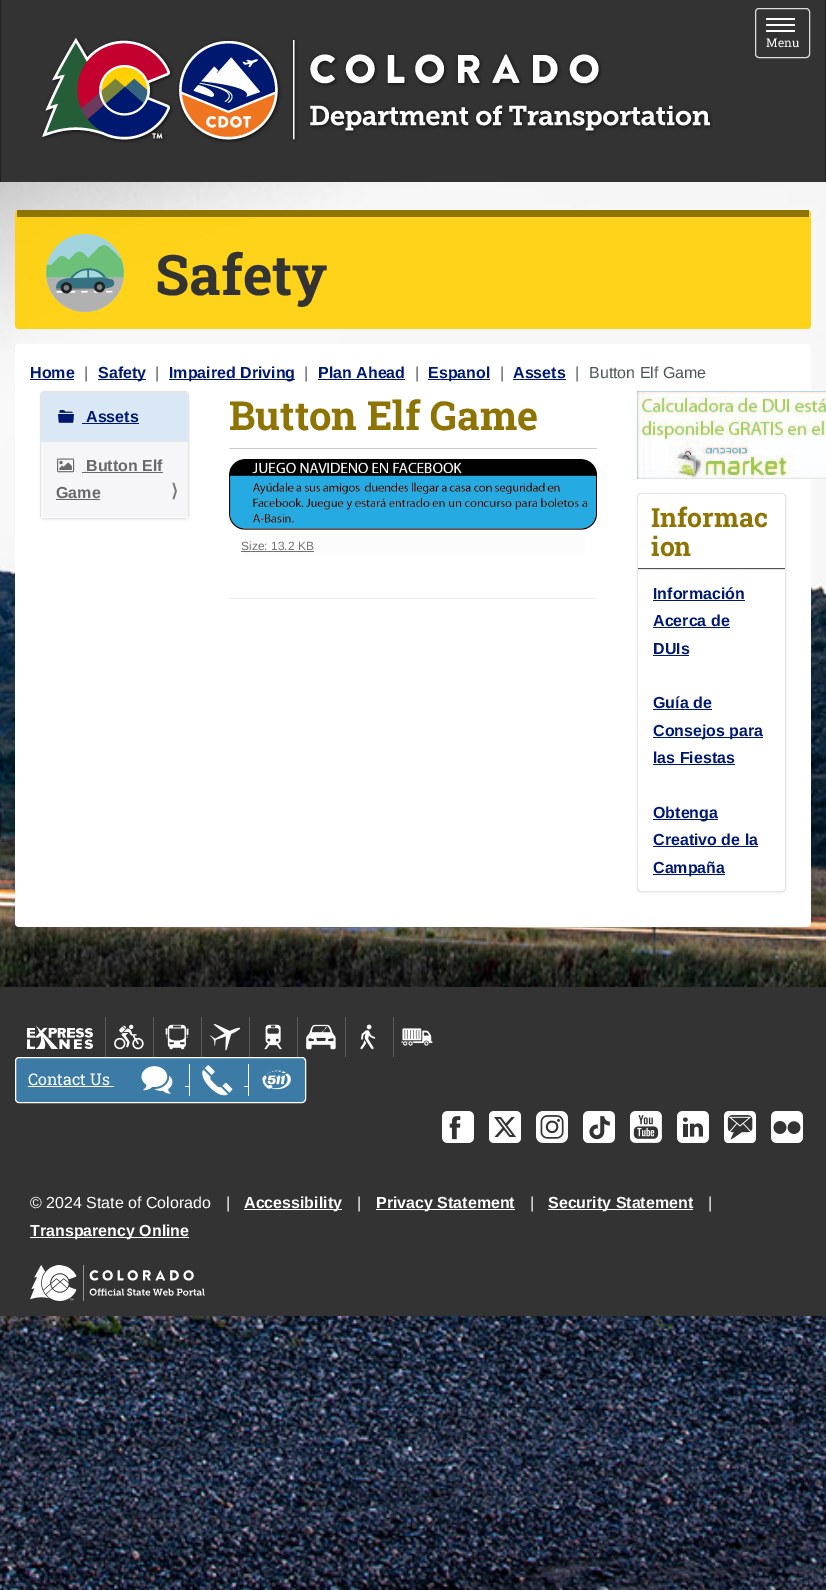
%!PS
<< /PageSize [826 1590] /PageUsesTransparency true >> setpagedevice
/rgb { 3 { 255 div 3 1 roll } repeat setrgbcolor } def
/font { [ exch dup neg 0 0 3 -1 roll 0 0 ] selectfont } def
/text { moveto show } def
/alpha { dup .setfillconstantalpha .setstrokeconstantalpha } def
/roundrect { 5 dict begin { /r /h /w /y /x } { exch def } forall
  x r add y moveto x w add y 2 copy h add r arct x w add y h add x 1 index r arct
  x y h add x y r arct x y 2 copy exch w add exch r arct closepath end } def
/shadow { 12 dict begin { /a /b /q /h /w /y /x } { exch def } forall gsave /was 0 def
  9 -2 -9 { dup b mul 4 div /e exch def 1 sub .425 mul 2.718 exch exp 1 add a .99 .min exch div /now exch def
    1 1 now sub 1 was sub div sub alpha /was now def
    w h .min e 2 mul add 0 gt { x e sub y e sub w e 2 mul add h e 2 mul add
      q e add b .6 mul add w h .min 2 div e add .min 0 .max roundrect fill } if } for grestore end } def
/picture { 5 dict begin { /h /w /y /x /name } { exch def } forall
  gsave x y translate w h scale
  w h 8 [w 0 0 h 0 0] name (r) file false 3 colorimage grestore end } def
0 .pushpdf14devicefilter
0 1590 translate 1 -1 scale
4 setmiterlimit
255 255 255 rgb
0 0 826 1590 rectfill
(img_01.rgb) 0 182 826 1408 picture
51 51 51 rgb
1 0 824 182 rectfill
34 34 34 rgb
825 0 1 182 rectfill
0 0 1 182 rectfill
(img_02.rgb) 42 38 671 105 picture
221 221 221 rgb
755.5 8.5 54 49 3.5 roundrect stroke
255 255 255 rgb
766 18 29 2 1 roundrect fill
766 24 29 2 1 roundrect fill
766 30 29 2 1 roundrect fill
0.9 alpha
255 207 1 rgb
15 210 796 119 4 roundrect fill
1 alpha
(img_03.rgb) 46 234 78 78 picture
142 116 3 rgb
17 210 792 7 rectfill
255 255 255 rgb
15 344 796 583 4 roundrect fill
0 25 112 rgb
30 379 44 1 rectfill
98 379 48 1 rectfill
169 379 126 1 rectfill
318 379 87 1 rectfill
428 379 62 1 rectfill
513 379 53 1 rectfill
0 0 0 rgb
40 392 149 128 4 1.5 0.05 shadow
229 229 229 rgb
40.5 391.5 148 127 3.5 roundrect stroke
255 255 255 rgb
41 393 147 3 rectfill
217 232 244 rgb
41 392 147 126 4 roundrect fill
229 229 229 rgb
41 392 147 1 rectfill
(img_04.rgb) 58 410 16 13 picture
0 25 112 rgb
82 423 57 1 rectfill
246 246 249 rgb
41 442 147 75 rectfill
229 229 229 rgb
41 441 147 1 rectfill
255 255 255 rgb
41 517 147 1 rectfill
(img_05.rgb) 57 458 18 15 picture
105 105 105 rgb
82 472 81 1 rectfill
56 499 44 1 rectfill
204 204 204 rgb
229 448 368 1 rectfill
(img_06.rgb) 229 459 368 71 picture
252 252 253 rgb
241 536 344 20 rectfill
113 113 113 rgb
241 551 73 1 rectfill
238 238 238 rgb
229 598 368 1 rectfill
(img_07.rgb) 637 391 189 88 picture
0 0 0 rgb
637 494 149 399 4 1.5 0.05 shadow
229 229 229 rgb
637.5 493.5 148 398 3.5 roundrect stroke
255 255 255 rgb
642 494 moveto 139 0 rlineto 2 0 4 2 4 4 rcurveto 0 71 rlineto -147 0 rlineto 0 -71 rlineto 0 -2 2 -4 4 -4 rcurveto closepath fill
78 87 87 rgb
638 568 147 1 rectfill
255 255 255 rgb
638 569 moveto 147 0 rlineto 0 318 rlineto 0 2 -2 4 -4 4 rcurveto -139 0 rlineto -2 0 -4 -2 -4 -4 rcurveto closepath fill
229 229 229 rgb
638 569 147 1 rectfill
0 25 112 rgb
653 600 92 1 rectfill
653 627 77 1 rectfill
653 655 36 1 rectfill
653 709 59 1 rectfill
653 737 110 1 rectfill
653 764 82 1 rectfill
653 819 65 1 rectfill
653 846 105 1 rectfill
653 874 72 1 rectfill
51 51 51 rgb
0 987 826 329 rectfill
92 92 92 rgb
105 1017 1 40 rectfill
(img_08.rgb) 27 1025 66 24 picture
153 1017 1 40 rectfill
(img_09.rgb) 114 1024 30 26 picture
201 1017 1 40 rectfill
(img_10.rgb) 165 1024 24 26 picture
249 1017 1 40 rectfill
(img_11.rgb) 209 1024 32 27 picture
297 1017 1 40 rectfill
(img_12.rgb) 264 1024 18 26 picture
345 1017 1 40 rectfill
(img_13.rgb) 306 1024 30 26 picture
393 1017 1 40 rectfill
(img_14.rgb) 360 1024 16 26 picture
(img_15.rgb) 401 1028 32 18 picture
59 123 165 rgb
15.5 1057.5 290 45 3.5 roundrect gsave fill grestore
255 255 255 rgb
stroke
28 1086 86 1 rectfill
(img_16.rgb) 141 1066 32 28 picture
189 1064 1 32 rectfill
(img_17.rgb) 202 1065 31 31 picture
248 1064 1 32 rectfill
(img_18.rgb) 262 1070 29 20 picture
185 1086 4 1 rectfill
244 1086 4 1 rectfill
(img_19.rgb) 442 1111 32 32 picture
(img_20.rgb) 489 1111 32 32 picture
(img_21.rgb) 536 1111 32 32 picture
(img_22.rgb) 583 1111 32 32 picture
(img_23.rgb) 630 1111 32 32 picture
(img_24.rgb) 677 1111 32 32 picture
(img_25.rgb) 724 1111 32 32 picture
(img_26.rgb) 771 1111 32 32 picture
244 1209 98 1 rectfill
376 1209 139 1 rectfill
548 1209 145 1 rectfill
30 1237 159 1 rectfill
(img_27.rgb) 30 1265 175 36 picture
/RobotoSlab-Regular 12 font
(Menu) 766 47 text
/RobotoSlab-Bold 56 font
51 51 51 rgb
(Safety) 155 295 text
/LiberationSans-Bold 16 font
0 25 112 rgb
(Home) 30 378 text
/LiberationSans-Regular 16 font
78 87 87 rgb
(|) 84 378 text
/LiberationSans-Bold 16 font
0 25 112 rgb
(Safety) 98 378 text
/LiberationSans-Regular 16 font
78 87 87 rgb
(|) 155 378 text
/LiberationSans-Bold 16 font
0 25 112 rgb
(Impaired Driving) 169 378 text
/LiberationSans-Regular 16 font
78 87 87 rgb
(|) 304 378 text
/LiberationSans-Bold 16 font
0 25 112 rgb
(Plan Ahead) 318 378 text
/LiberationSans-Regular 16 font
78 87 87 rgb
(|) 415 378 text
/LiberationSans-Bold 16 font
0 25 112 rgb
(Espanol) 428 378 text
/LiberationSans-Regular 16 font
78 87 87 rgb
(|) 500 378 text
/LiberationSans-Bold 16 font
0 25 112 rgb
(Assets) 513 378 text
/LiberationSans-Regular 16 font
78 87 87 rgb
(|) 575 378 text
(Button Elf Game) 589 378 text
/LiberationSans-Bold 16 font
0 25 112 rgb
(Assets) 86 422 text
105 105 105 rgb
(Button Elf) 86 471 text
(Game) 56 498 text
/DejaVuSans-Bold 18 font
119 119 119 rgb
(⟩) 171 497 text
/RobotoSlab-Bold 40 font
142 116 3 rgb
(Button Elf Game) 229 430 text
/LiberationSans-Regular 12 font
113 113 113 rgb
(Size: 13.2 KB) 241 550 text
/RobotoSlab-Bold 26.5 font
142 116 3 rgb
(Informac) 651 527 text
(ion) 651 556 text
/LiberationSans-Bold 16 font
0 25 112 rgb
(Información) 653 599 text
(Acerca de) 653 626 text
(DUIs) 653 654 text
(Guía de) 653 708 text
(Consejos para) 653 736 text
(las Fiestas) 653 763 text
(Obtenga) 653 818 text
(Creativo de la) 653 845 text
(Campaña) 653 873 text
/RobotoSlab-Regular 16 font
255 255 255 rgb
(Contact Us) 28 1085 text
/LiberationSans-Regular 16 font
(© 2024 State of Colorado) 30 1208 text
(|) 226 1208 text
/LiberationSans-Bold 16 font
(Accessibility) 244 1208 text
/LiberationSans-Regular 16 font
(|) 357 1208 text
/LiberationSans-Bold 16 font
(Privacy Statement) 376 1208 text
/LiberationSans-Regular 16 font
(|) 530 1208 text
/LiberationSans-Bold 16 font
(Security Statement) 548 1208 text
/LiberationSans-Regular 16 font
(|) 708 1208 text
/LiberationSans-Bold 16 font
(Transparency Online) 30 1236 text
.poppdf14devicefilter showpage
